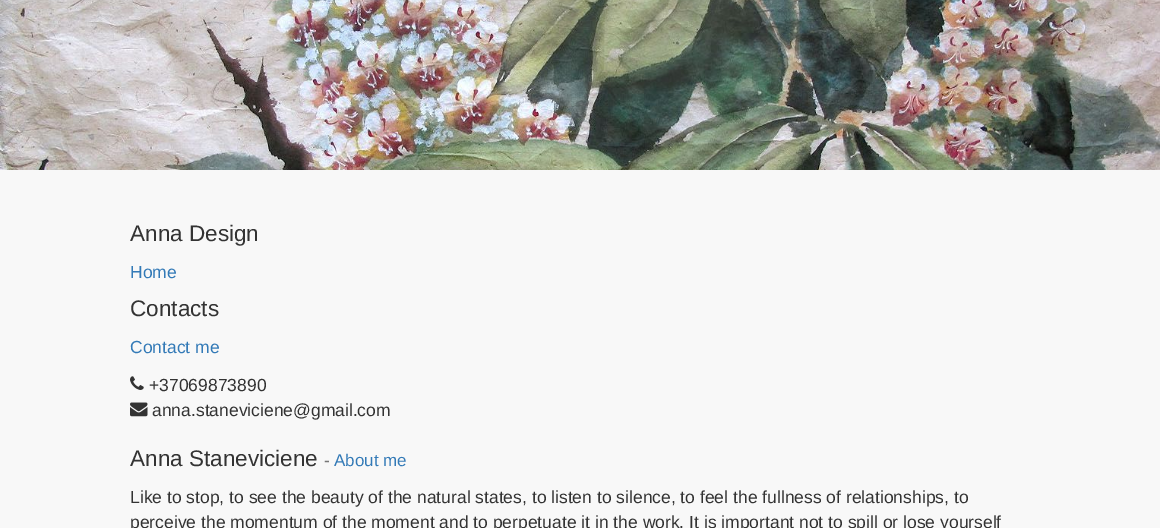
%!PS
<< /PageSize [1160 528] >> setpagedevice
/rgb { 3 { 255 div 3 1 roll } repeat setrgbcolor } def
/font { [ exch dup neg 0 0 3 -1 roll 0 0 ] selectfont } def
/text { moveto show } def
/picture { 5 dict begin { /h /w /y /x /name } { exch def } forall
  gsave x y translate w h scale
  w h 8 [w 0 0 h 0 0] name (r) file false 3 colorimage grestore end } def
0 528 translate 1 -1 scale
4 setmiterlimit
248 248 248 rgb
0 0 1160 528 rectfill
(img_01.rgb) 0 0 1160 170 picture
(img_02.rgb) 130 376 14 14 picture
(img_03.rgb) 130 402 18 15 picture
/LiberationSans-Regular 22.5 font
51 51 51 rgb
(Anna Design) 130 241 text
/LiberationSans-Regular 17.5 font
51 122 183 rgb
(Home) 130 278 text
/LiberationSans-Regular 22.5 font
51 51 51 rgb
(Contacts) 130 316 text
/LiberationSans-Regular 17.5 font
51 122 183 rgb
(Contact me) 130 353 text
51 51 51 rgb
(+37069873890) 149 391 text
(anna.staneviciene@gmail.com) 152 416 text
/LiberationSans-Regular 22.5 font
(Anna Staneviciene) 130 466 text
/LiberationSans-Regular 17 font
119 119 119 rgb
(-) 324 466 text
51 122 183 rgb
(About me) 334 466 text
/LiberationSans-Regular 17.5 font
51 51 51 rgb
(Like to stop, to see the beauty of the natural states, to listen to silence, to feel the fullness of relationships, to) 130 503 text
(perceive the momentum of the moment and to perpetuate it in the work. It is important not to spill or lose yourself) 130 528 text
showpage
